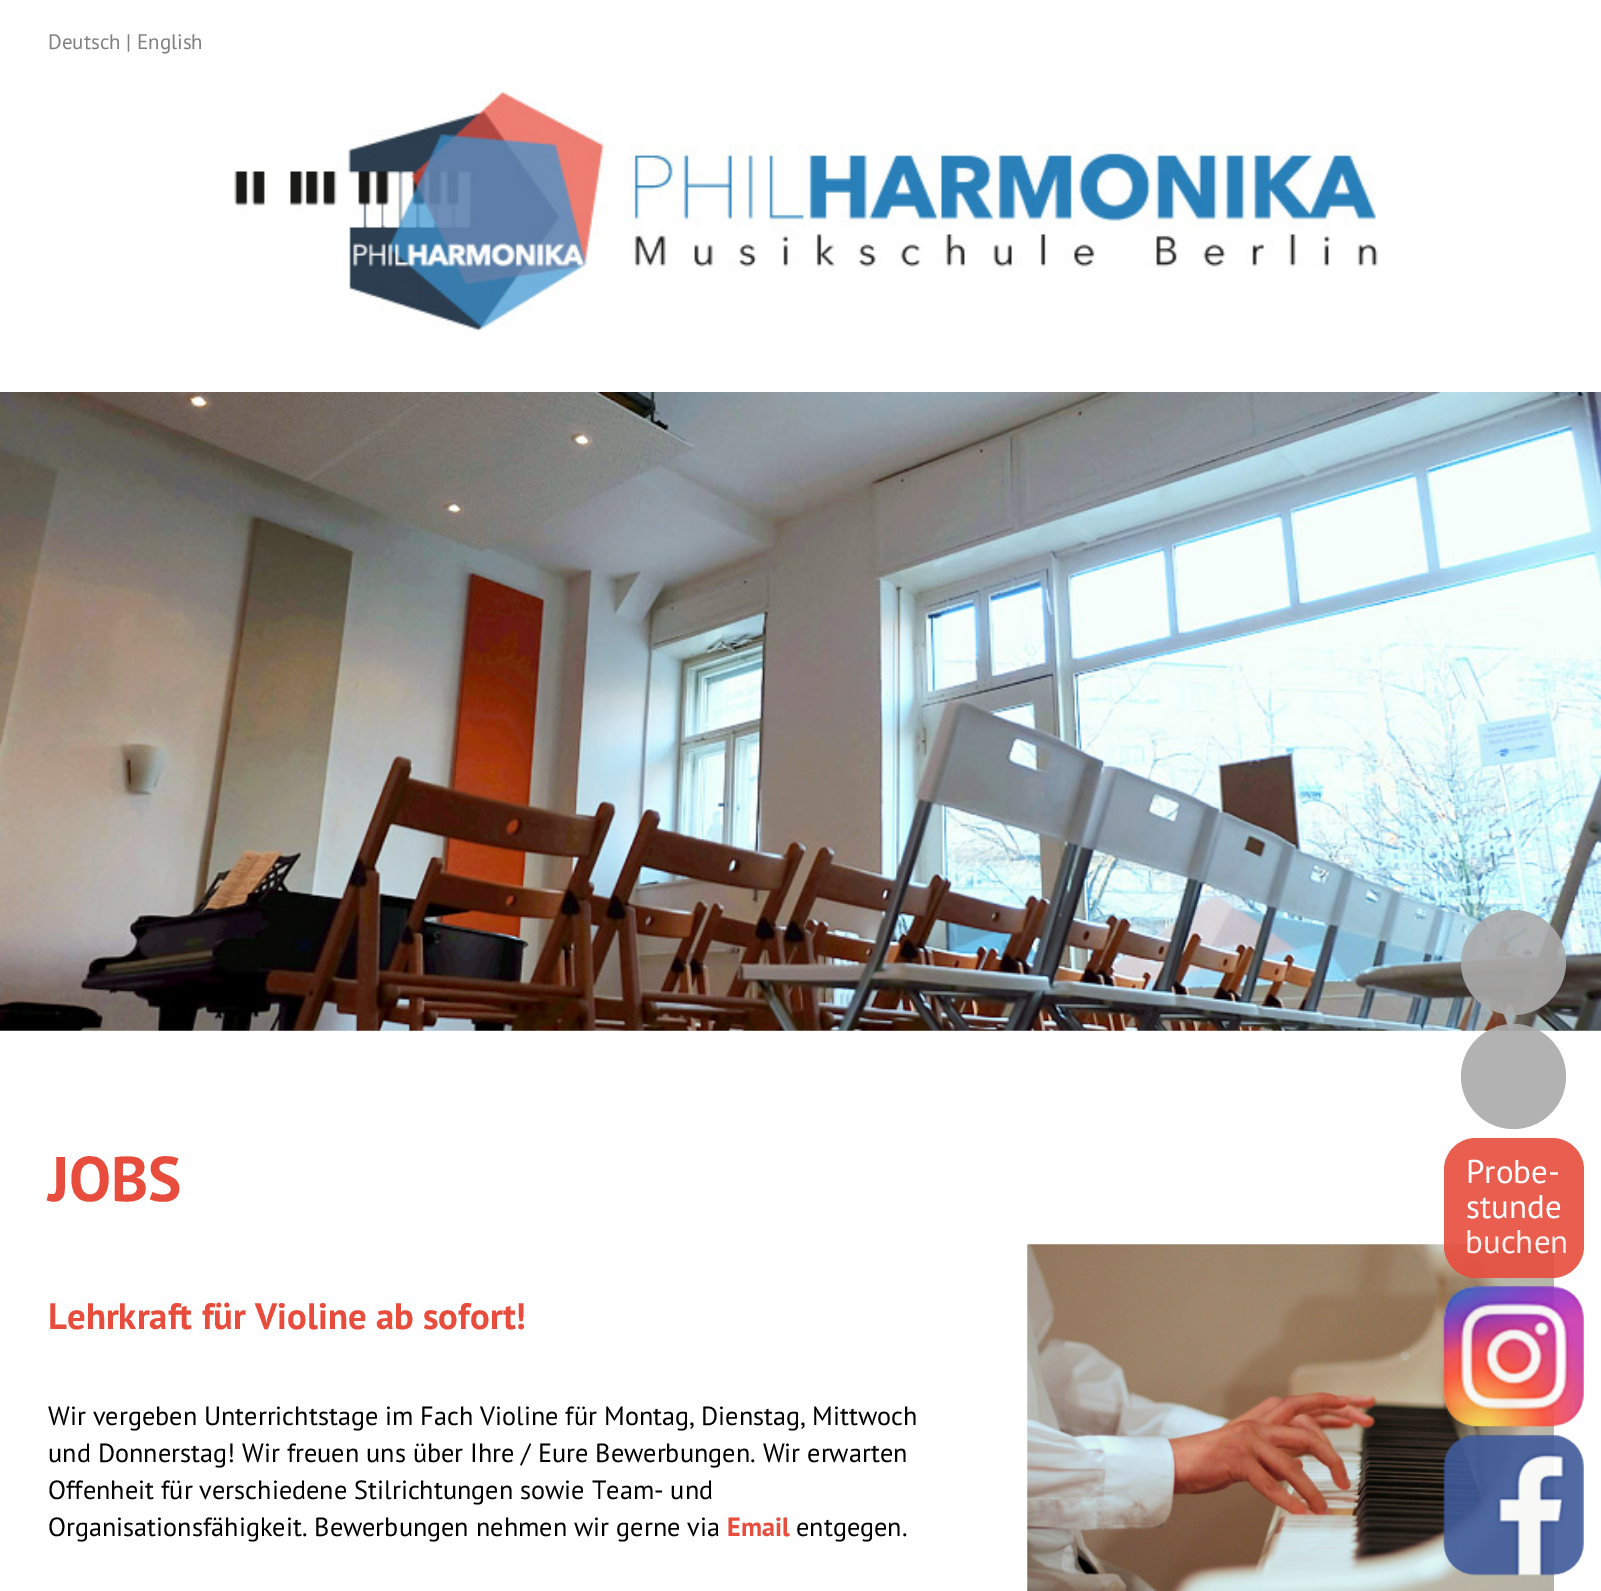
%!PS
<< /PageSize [1601 1591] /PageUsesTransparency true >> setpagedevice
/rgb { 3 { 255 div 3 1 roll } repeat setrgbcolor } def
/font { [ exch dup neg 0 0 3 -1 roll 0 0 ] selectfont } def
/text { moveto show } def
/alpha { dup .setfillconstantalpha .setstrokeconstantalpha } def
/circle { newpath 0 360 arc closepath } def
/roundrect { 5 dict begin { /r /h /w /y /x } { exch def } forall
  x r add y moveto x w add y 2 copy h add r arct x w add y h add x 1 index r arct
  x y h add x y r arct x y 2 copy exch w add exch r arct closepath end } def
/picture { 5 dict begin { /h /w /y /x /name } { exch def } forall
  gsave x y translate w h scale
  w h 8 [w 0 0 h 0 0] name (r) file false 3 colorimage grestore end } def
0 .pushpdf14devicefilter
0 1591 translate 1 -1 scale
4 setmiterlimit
255 255 255 rgb
0 0 1601 1591 rectfill
(img_01.rgb) 234 87 1144 245 picture
(img_02.rgb) 0 392 1601 639 picture
(img_03.rgb) 1027 1244 527 347 picture
0.9 alpha
170 170 170 rgb
1513.5 962.5 52.5 circle fill
1513.5 1076.5 52.5 circle fill
231 76 60 rgb
1444 1138 140 140 32 roundrect fill
1 alpha
(img_04.rgb) 1443 1286 141 141 picture
(img_05.rgb) 1443 1434 141 142 picture
/PTSans-Regular 21 font
128 128 128 rgb
(Deutsch | English) 48 49 text
/PTSans-Bold 63 font
231 76 60 rgb
(JOBS) 48 1201 text
/PTSans-Bold 36.75 font
(Lehrkraft für Violine ab sofort!) 48 1329 text
/PTSans-Regular 26.25 font
0 0 0 rgb
(Wir vergeben Unterrichtstage im Fach Violine für Montag, Dienstag, Mittwoch) 48 1425 text
(und Donnerstag! Wir freuen uns über Ihre / Eure Bewerbungen. Wir erwarten) 48 1462 text
(Offenheit für verschiedene Stilrichtungen sowie Team- und) 48 1499 text
(Organisationsfähigkeit. Bewerbungen nehmen wir gerne via) 48 1536 text
/PTSans-Bold 26.25 font
231 76 60 rgb
(Email) 727 1536 text
/PTSans-Regular 26.25 font
0 0 0 rgb
(entgegen.) 796 1536 text
/PTSans-Regular 33 font
255 255 255 rgb
(Probe-) 1466 1183 text
(stunde) 1466 1218 text
253 239 237 rgb
(buchen) 1465 1253 text
.poppdf14devicefilter showpage
